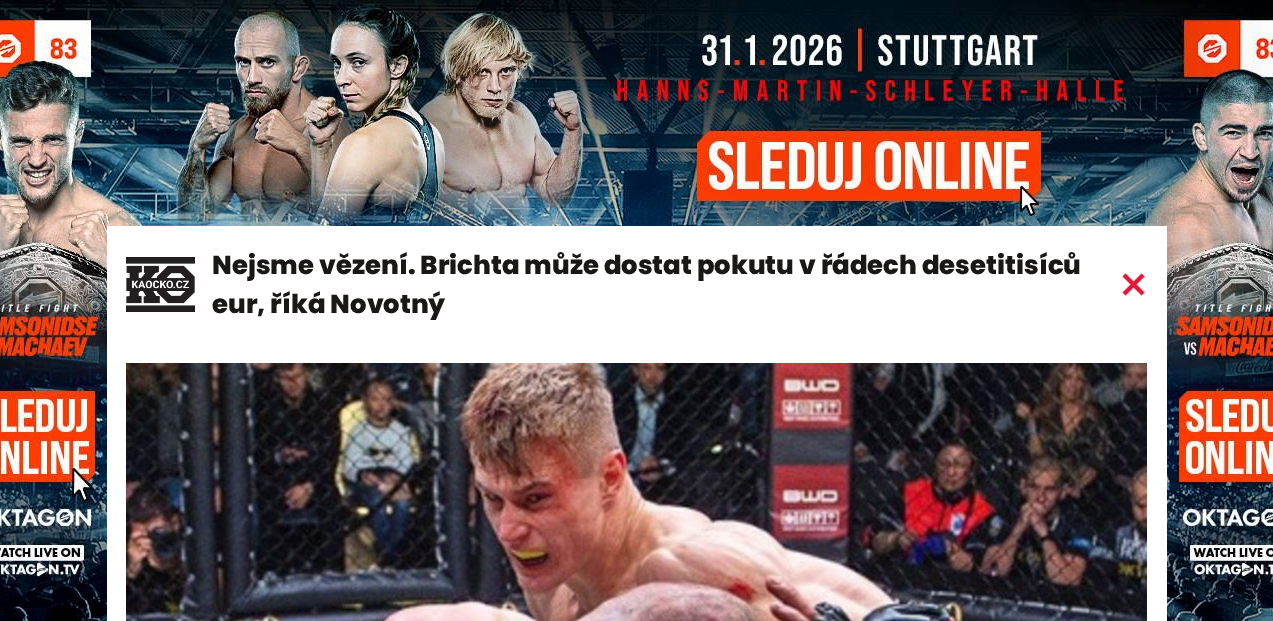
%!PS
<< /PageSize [1273 621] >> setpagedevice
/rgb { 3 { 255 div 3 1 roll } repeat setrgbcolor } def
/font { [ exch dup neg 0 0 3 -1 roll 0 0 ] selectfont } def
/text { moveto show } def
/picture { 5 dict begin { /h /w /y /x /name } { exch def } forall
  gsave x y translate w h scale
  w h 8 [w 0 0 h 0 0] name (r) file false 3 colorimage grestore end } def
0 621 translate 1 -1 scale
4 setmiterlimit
255 255 255 rgb
0 0 1273 621 rectfill
(img_01.rgb) 0 0 1273 621 picture
107 226 1060 395 rectfill
(img_02.rgb) 126 257 69 55 picture
(img_03.rgb) 1122 273 23 23 picture
(img_04.rgb) 126 363 1021 258 picture
/Poppins-ExtraBold 25.9 font
25 24 23 rgb
(Nejsme vězení. Brichta může dostat pokutu v řádech desetitisíců) 212 274 text
(eur, říká Novotný) 212 313 text
showpage
